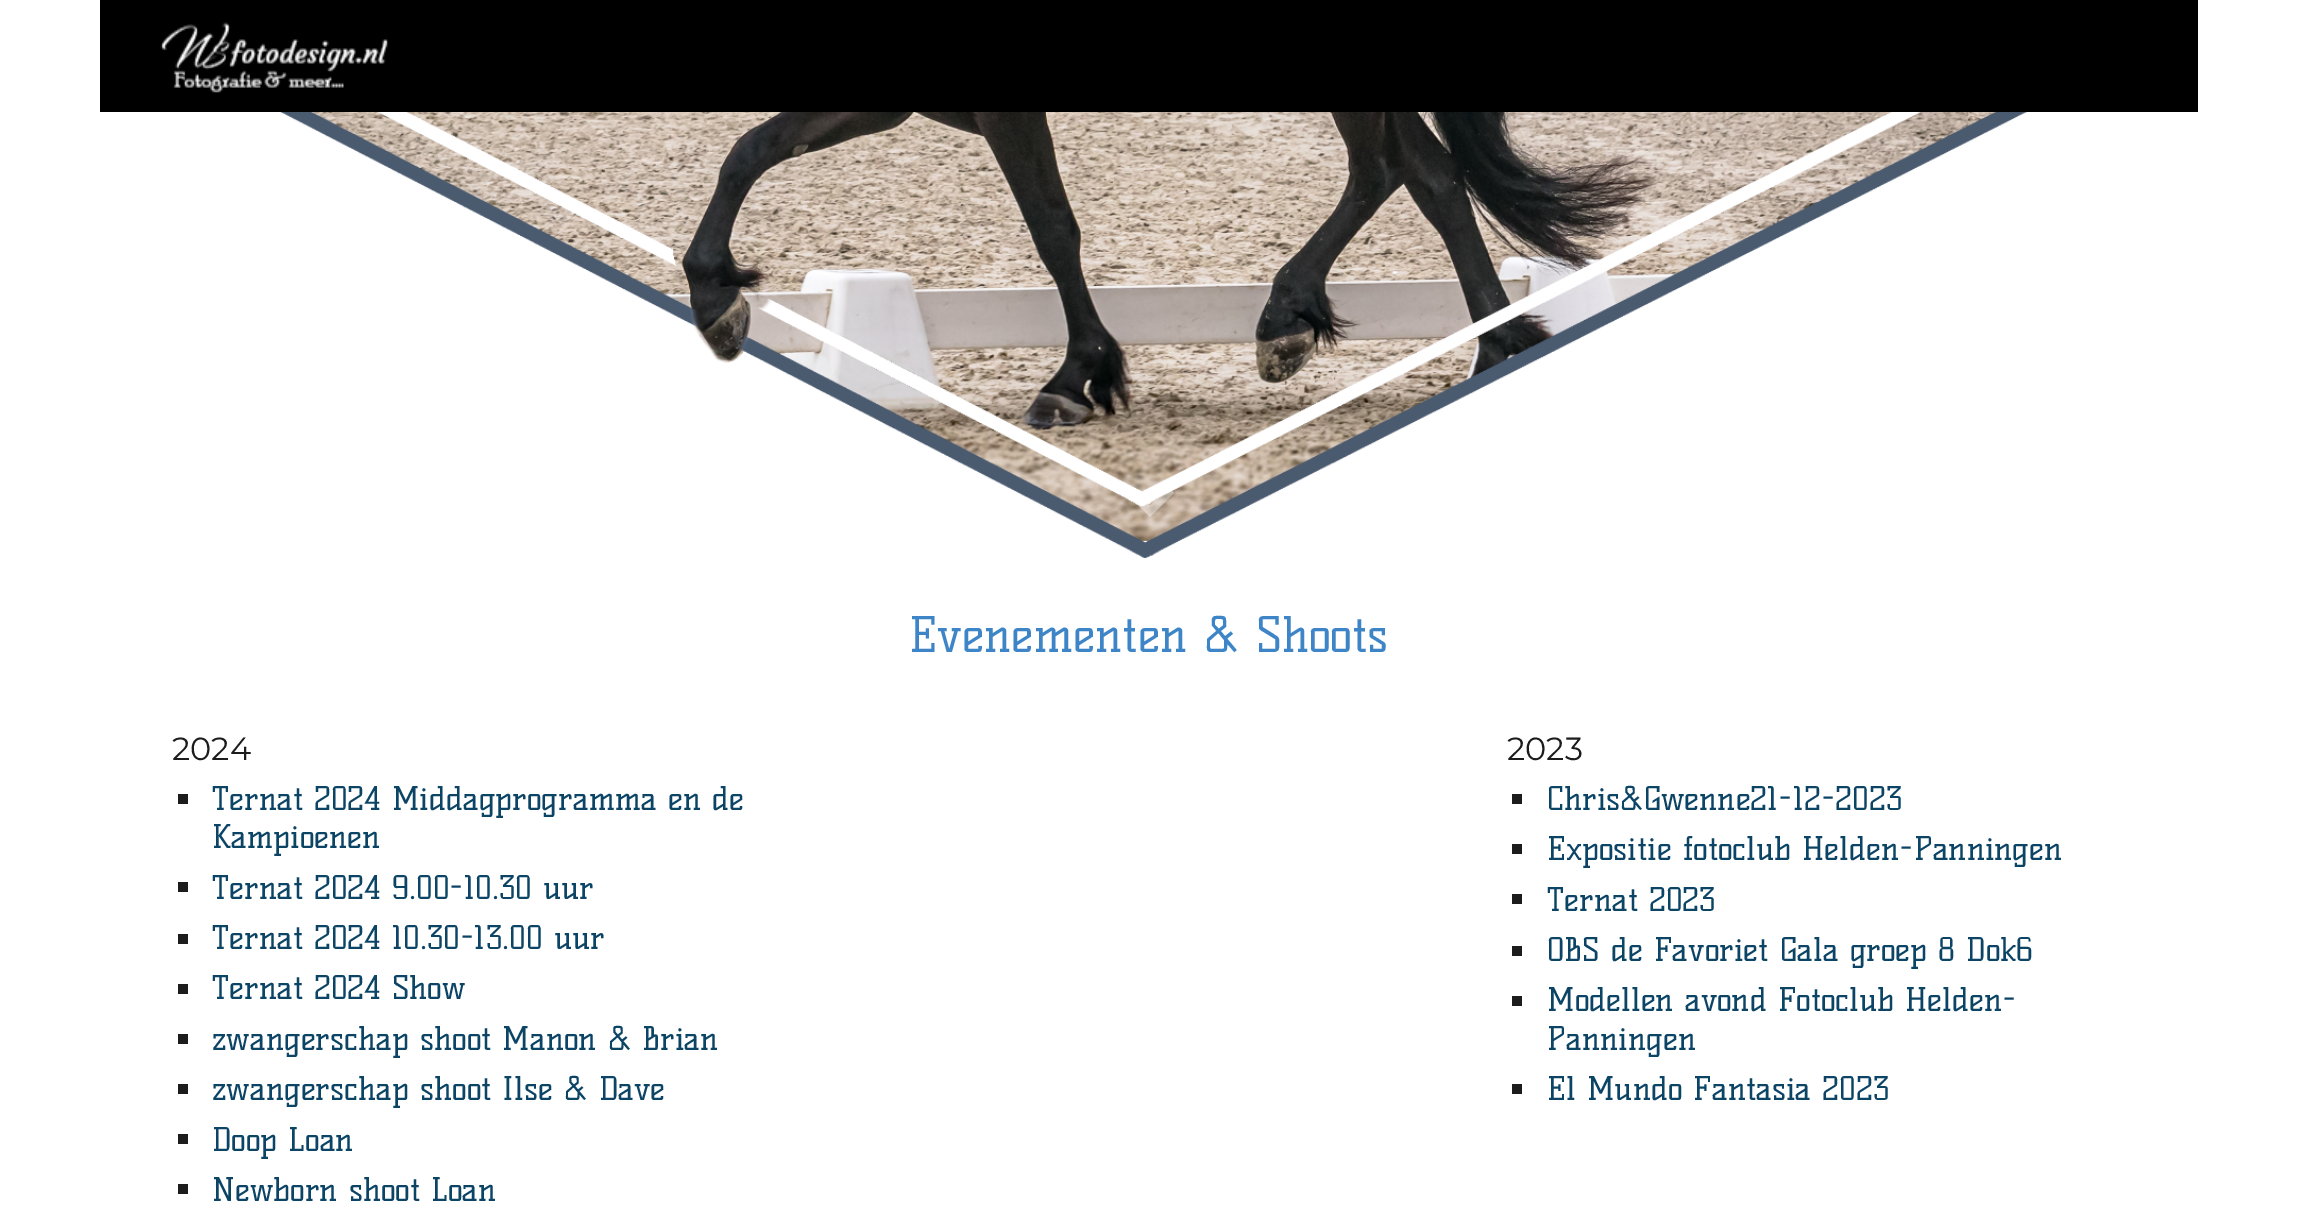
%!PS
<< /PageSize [2297 1222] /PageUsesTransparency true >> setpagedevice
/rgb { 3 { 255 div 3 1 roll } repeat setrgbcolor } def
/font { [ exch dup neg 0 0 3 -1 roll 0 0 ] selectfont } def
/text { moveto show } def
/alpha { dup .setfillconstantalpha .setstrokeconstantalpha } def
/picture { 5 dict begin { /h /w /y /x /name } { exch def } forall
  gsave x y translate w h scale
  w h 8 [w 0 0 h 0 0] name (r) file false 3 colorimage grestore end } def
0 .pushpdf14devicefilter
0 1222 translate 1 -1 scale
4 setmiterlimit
255 255 255 rgb
0 0 2297 1222 rectfill
0 0 0 rgb
100 0 2098 112 rectfill
(img_01.rgb) 160 22 228 71 picture
(img_02.rgb) 280 112 1747 446 picture
0.4 alpha
255 255 255 rgb
1132 487 moveto 18 19 rlineto 18 -19 rlineto 6 6 rlineto -24 24 rlineto -24 -24 rlineto closepath fill
1 alpha
28 28 28 rgb
178 794 10 10 rectfill
178 882 10 10 rectfill
178 934 10 10 rectfill
178 984 10 10 rectfill
178 1034 10 10 rectfill
178 1084 10 10 rectfill
178 1134 10 10 rectfill
178 1184 10 10 rectfill
1512 794 10 10 rectfill
1512 844 10 10 rectfill
1512 894 10 10 rectfill
1512 946 10 10 rectfill
1512 996 10 10 rectfill
1512 1084 10 10 rectfill
/KellySlab-Regular 48 font
61 133 198 rgb
(Evenementen & Shoots) 909 652 text
/Montserrat-Regular 32 font
28 28 28 rgb
(2024) 172 760 text
/KellySlab-Regular 32 font
12 68 102 rgb
(Ternat 2024 Middagprogramma en de) 212 810 text
(Kampioenen) 212 848 text
(Ternat 2024 9.00-10.30 uur) 212 899 text
(Ternat 2024 10.30-13.00 uur) 212 949 text
(Ternat 2024 Show) 212 999 text
(zwangerschap shoot Manon & Brian) 212 1050 text
(zwangerschap shoot Ilse & Dave) 212 1100 text
(Doop Loan) 212 1151 text
(Newborn shoot Loan) 212 1201 text
/Montserrat-Regular 32 font
28 28 28 rgb
(2023) 1507 760 text
/KellySlab-Regular 32 font
12 68 102 rgb
(Chris&Gwenne21-12-2023) 1547 810 text
(Expositie fotoclub Helden-Panningen) 1547 860 text
(Ternat 2023) 1547 911 text
(OBS de Favoriet Gala groep 8 Dok6) 1547 961 text
(Modellen avond Fotoclub Helden-) 1547 1011 text
(Panningen) 1547 1050 text
(El Mundo Fantasia 2023) 1547 1100 text
.poppdf14devicefilter showpage
